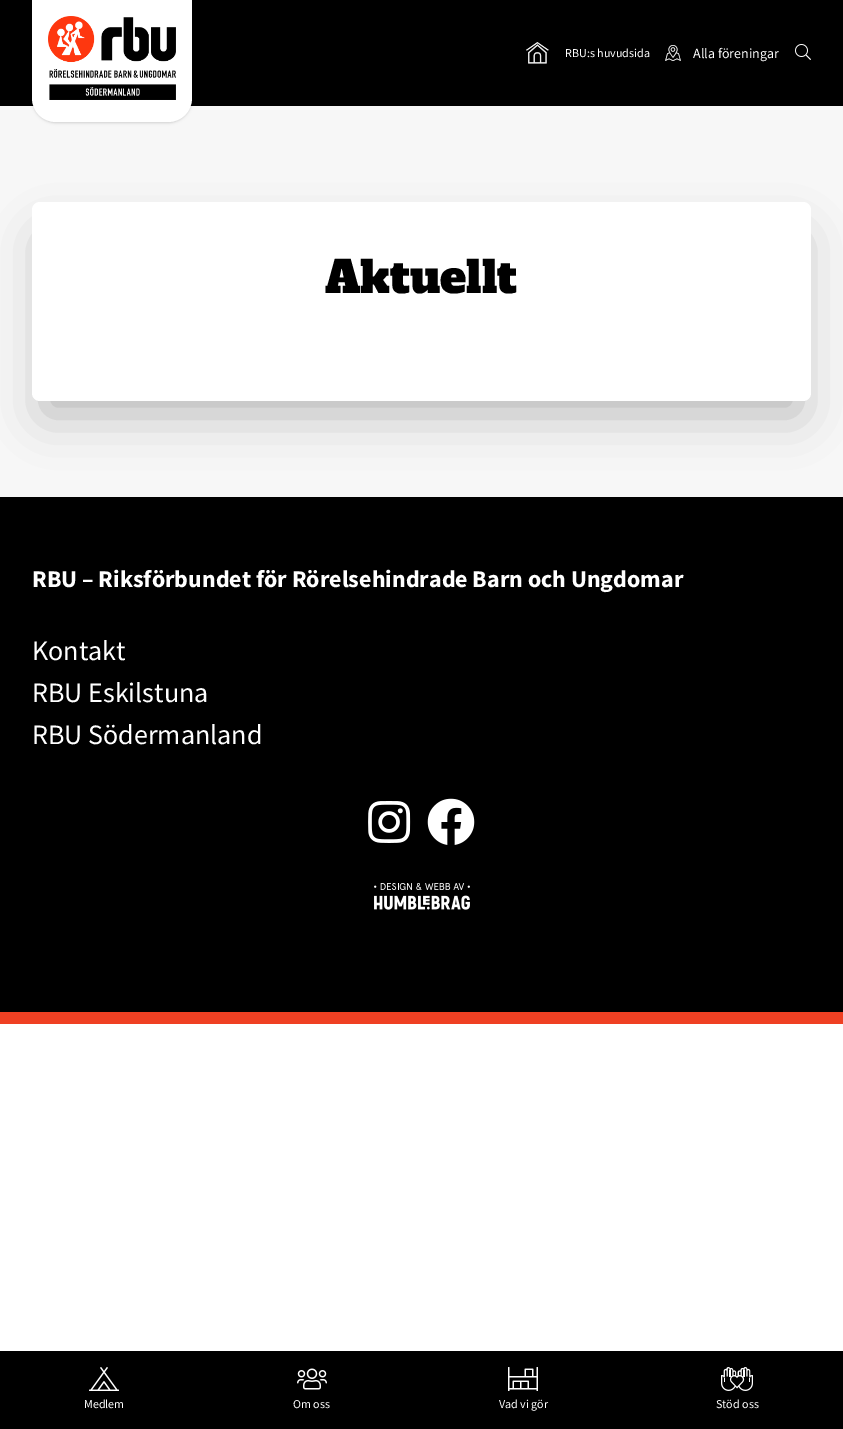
%!PS
<< /PageSize [843 1429] /PageUsesTransparency true >> setpagedevice
/rgb { 3 { 255 div 3 1 roll } repeat setrgbcolor } def
/font { [ exch dup neg 0 0 3 -1 roll 0 0 ] selectfont } def
/text { moveto show } def
/alpha { dup .setfillconstantalpha .setstrokeconstantalpha } def
/roundrect { 5 dict begin { /r /h /w /y /x } { exch def } forall
  x r add y moveto x w add y 2 copy h add r arct x w add y h add x 1 index r arct
  x y h add x y r arct x y 2 copy exch w add exch r arct closepath end } def
/shadow { 12 dict begin { /a /b /q /h /w /y /x } { exch def } forall gsave /was 0 def
  9 -2 -9 { dup b mul 4 div /e exch def 1 sub .425 mul 2.718 exch exp 1 add a .99 .min exch div /now exch def
    1 1 now sub 1 was sub div sub alpha /was now def
    w h .min e 2 mul add 0 gt { x e sub y e sub w e 2 mul add h e 2 mul add
      q e add b .6 mul add w h .min 2 div e add .min 0 .max roundrect fill } if } for grestore end } def
/picture { 5 dict begin { /h /w /y /x /name } { exch def } forall
  gsave x y translate w h scale
  w h 8 [w 0 0 h 0 0] name (r) file false 3 colorimage grestore end } def
0 .pushpdf14devicefilter
0 1429 translate 1 -1 scale
4 setmiterlimit
255 255 255 rgb
0 0 843 1429 rectfill
0 0 0 rgb
0 0 843 106 rectfill
(img_01.rgb) 526 42 23 22 picture
(img_02.rgb) 665 45 16 16 picture
(img_03.rgb) 795 44 16 16 picture
247 247 247 rgb
0 106 843 391 rectfill
0 0 0 rgb
32 1 160 122 24 1 0.06 shadow
32 1 160 122 24 1.5 0.1 shadow
255 255 255 rgb
32 0 moveto 160 0 rlineto 0 98 rlineto 0 13.5 -10.5 24 -24 24 rcurveto -112 0 rlineto -13.5 0 -24 -10.5 -24 -24 rcurveto closepath fill
(img_04.rgb) 48 16 128 84 picture
0 0 0 rgb
0 1351 843 78 rectfill
(img_05.rgb) 89 1367 30 24 picture
(img_06.rgb) 297 1368 30 22 picture
(img_07.rgb) 508 1367 30 24 picture
(img_08.rgb) 721 1367 32 24 picture
44 239 755 175 0 25 0.25 shadow
255 255 255 rgb
32 202 779 199 8 roundrect fill
0 0 0 rgb
0 497 843 515 rectfill
(img_09.rgb) 368 801 43 42 picture
(img_10.rgb) 427 798 48 47 picture
(img_11.rgb) 374 883 96 27 picture
239 64 35 rgb
0 1012 843 12 rectfill
/SourceSansPro-Regular 12 font
255 255 255 rgb
(RBU:s huvudsida) 565 57 text
/SourceSansPro-Regular 14 font
(Alla föreningar) 693 58 text
/SourceSansPro-Regular 12 font
(Medlem) 84 1408 text
(Om oss) 293 1408 text
(Vad vi gör) 499 1408 text
(Stöd oss) 716 1408 text
/AlfaSlabOne-Regular 44 font
0 0 0 rgb
(Aktuellt) 325 293 text
/SourceSansPro-Bold 24 font
255 255 255 rgb
(RBU – Riksförbundet för Rörelsehindrade Barn och Ungdomar) 32 587 text
/SourceSansPro-Regular 28 font
(Kontakt) 32 660 text
(RBU Eskilstuna) 32 702 text
(RBU Södermanland) 32 744 text
.poppdf14devicefilter showpage
